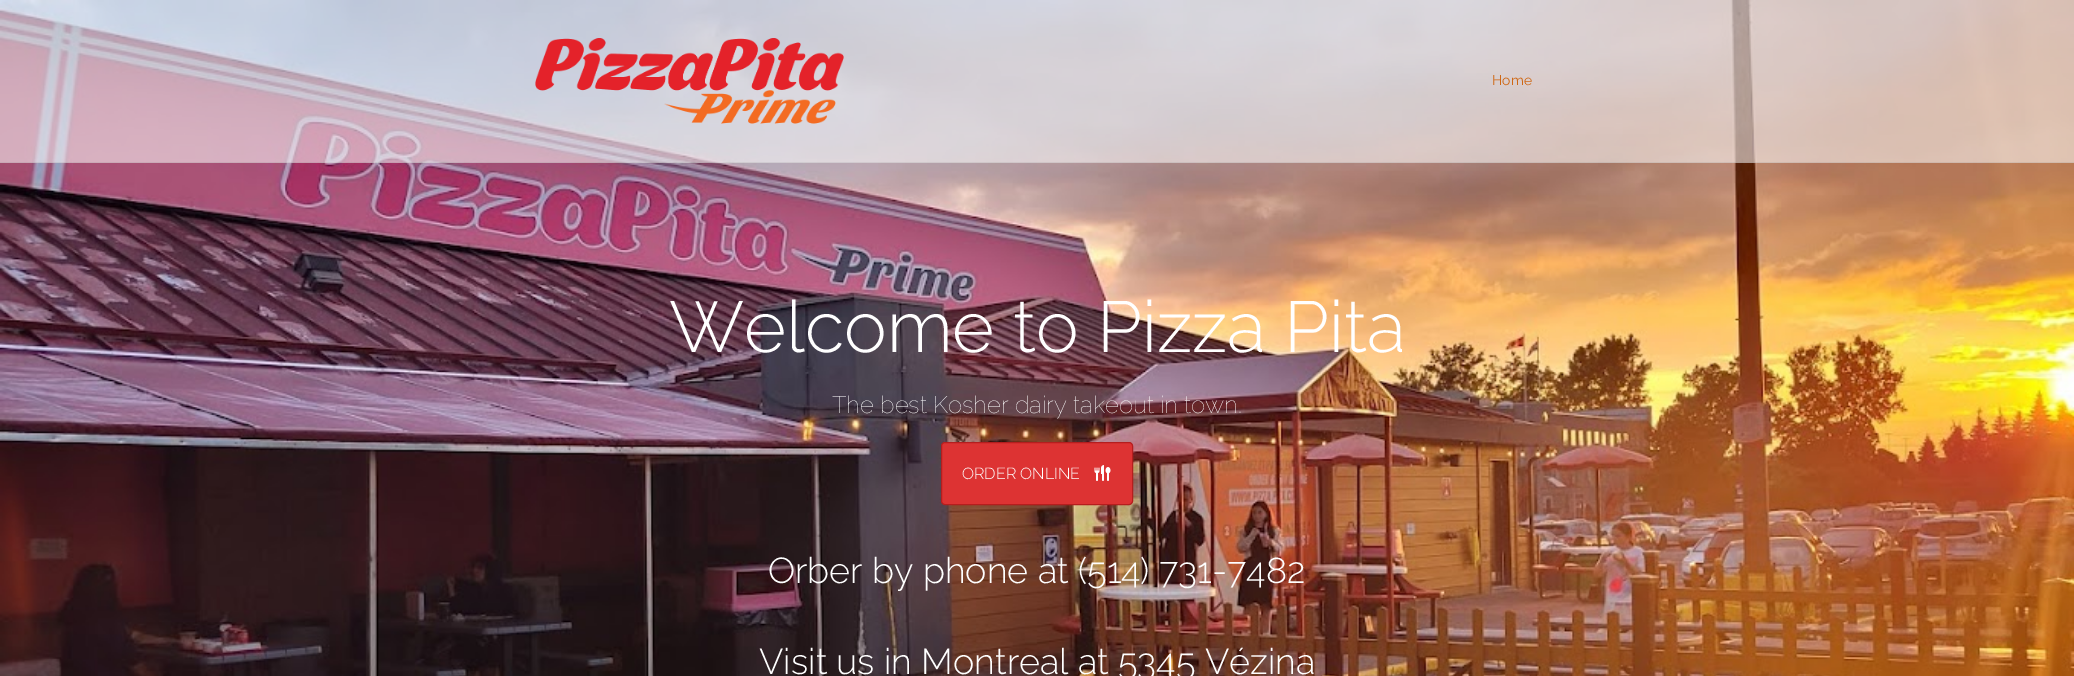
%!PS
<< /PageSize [2074 676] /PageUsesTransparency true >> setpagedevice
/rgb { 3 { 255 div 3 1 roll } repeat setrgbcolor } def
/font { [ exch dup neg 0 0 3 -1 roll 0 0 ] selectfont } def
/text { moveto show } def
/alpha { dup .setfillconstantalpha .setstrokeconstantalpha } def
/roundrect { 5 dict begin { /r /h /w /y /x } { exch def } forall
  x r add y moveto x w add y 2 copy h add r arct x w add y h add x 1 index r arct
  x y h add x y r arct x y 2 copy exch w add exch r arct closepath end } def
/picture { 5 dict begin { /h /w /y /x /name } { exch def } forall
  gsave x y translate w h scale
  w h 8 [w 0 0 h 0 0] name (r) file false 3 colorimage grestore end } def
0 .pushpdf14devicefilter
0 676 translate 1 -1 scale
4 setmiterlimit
255 255 255 rgb
0 0 2074 676 rectfill
(img_01.rgb) 0 0 2074 676 picture
0.55 alpha
0 0 2074 163 rectfill
0.13 alpha
117 117 117 rgb
0 162 2074 1 rectfill
1 alpha
(img_02.rgb) 535 38 309 86 picture
221 51 51 rgb
941.5 442.5 191 62 3.5 roundrect gsave fill grestore
181 30 30 rgb
stroke
(img_03.rgb) 1094 465 17 16 picture
/Raleway-Regular 14 font
207 103 19 rgb
(Home) 1492 85 text
/Raleway-Light 72 font
255 255 255 rgb
(Welcome to Pizza Pita) 669 352 text
/Raleway-Thin 24 font
(The best Kosher dairy takeout in town.) 832 413 text
/Raleway-Light 16 font
(ORDER ONLINE) 962 479 text
/Raleway-Light 36 font
(Orber by phone at \(514\) 731-7482) 768 583 text
(Visit us in Montreal at 5345 Vézina) 759 674 text
.poppdf14devicefilter showpage
